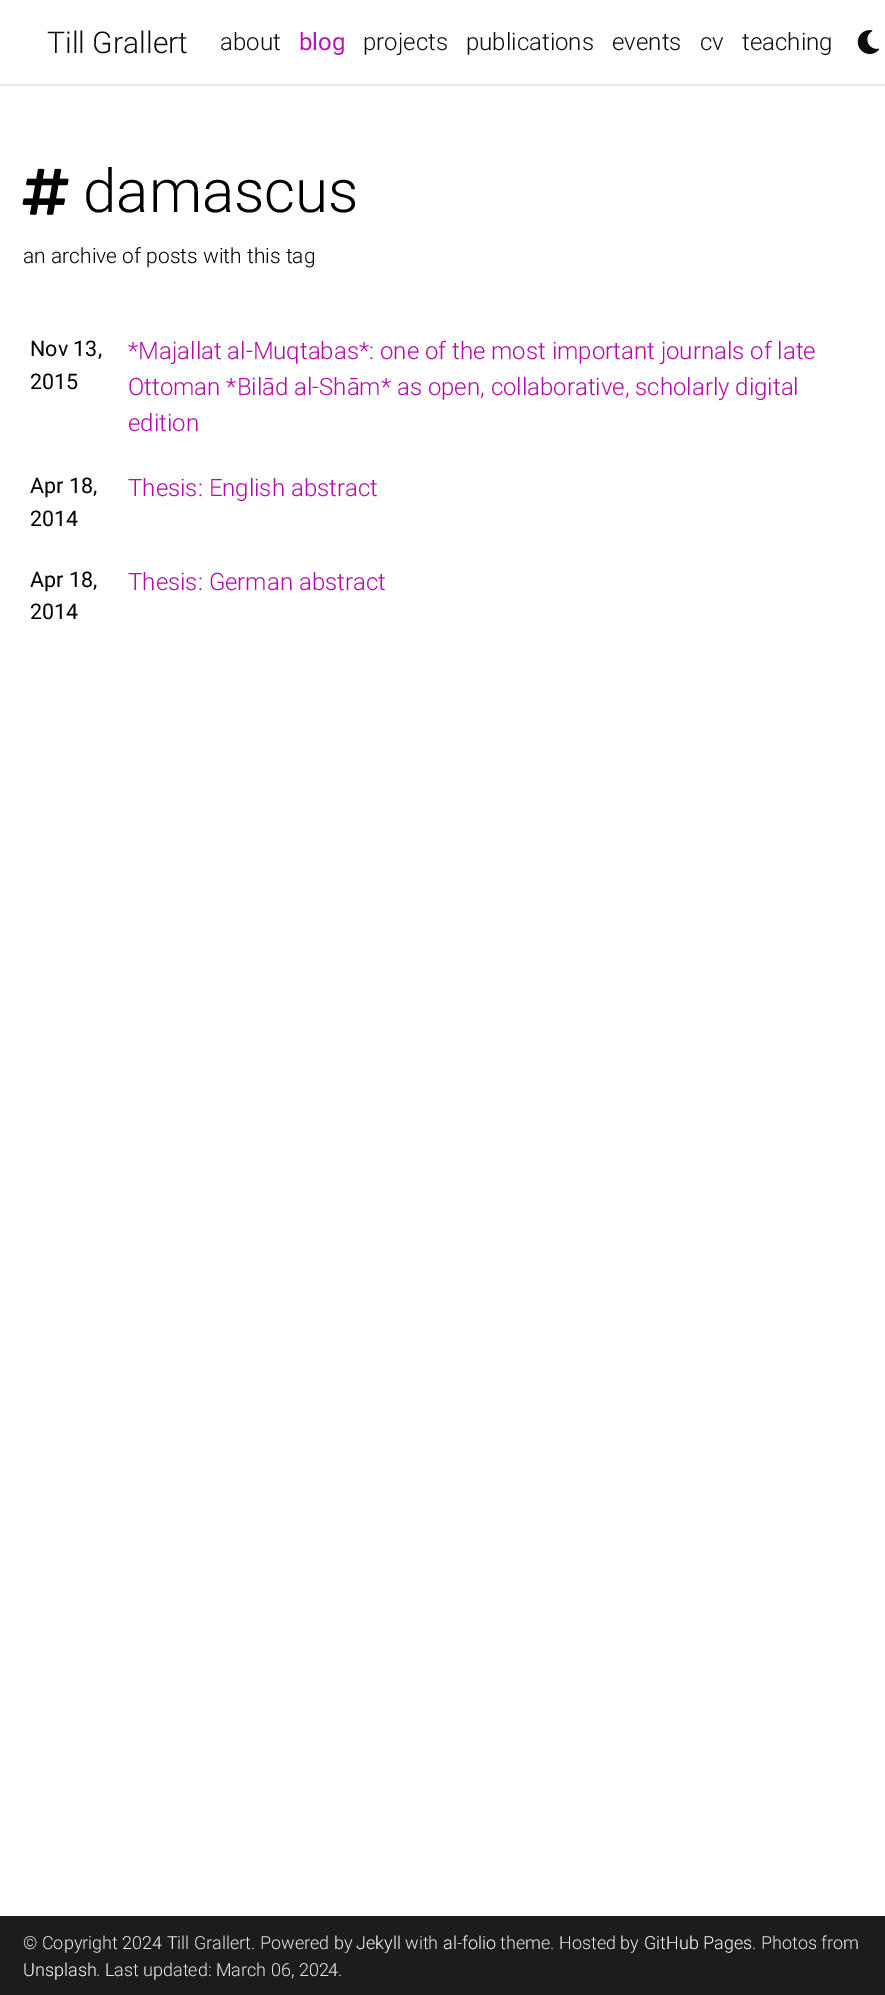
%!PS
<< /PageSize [885 1995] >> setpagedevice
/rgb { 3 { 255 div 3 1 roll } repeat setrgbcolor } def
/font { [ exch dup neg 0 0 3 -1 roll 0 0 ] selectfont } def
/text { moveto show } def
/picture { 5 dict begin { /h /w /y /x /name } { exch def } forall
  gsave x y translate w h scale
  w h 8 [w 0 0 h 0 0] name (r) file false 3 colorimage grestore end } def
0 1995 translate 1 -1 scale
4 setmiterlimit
255 255 255 rgb
0 0 885 1995 rectfill
231 231 231 rgb
0 84 885 2 rectfill
(img_01.rgb) 857 30 23 24 picture
(img_02.rgb) 22 168 47 47 picture
28 28 29 rgb
0 1916 885 79 rectfill
/Roboto-Light 30 font
13 13 13 rgb
(Till Grallert) 47 53 text
/Roboto-Light 24 font
(about) 220 50 text
/Roboto-Regular 24 font
185 21 176 rgb
(blog) 299 50 text
/Roboto-Light 24 font
13 13 13 rgb
(projects) 363 50 text
(publications) 466 50 text
(events) 612 50 text
(cv) 700 50 text
(teaching) 742 50 text
/Roboto-Light 60 font
0 0 0 rgb
(damascus) 83 212 text
/Roboto-Light 21 font
(an archive of posts with this tag) 23 263 text
/Roboto-Regular 21.5 font
(Nov 13,) 30 356 text
(2015) 30 389 text
/Roboto-Light 24 font
181 9 172 rgb
(*Majallat al-Muqtabas*: one of the most important journals of late) 128 359 text
(Ottoman *Bilād al-Shām* as open, collaborative, scholarly digital) 128 395 text
(edition) 128 431 text
/Roboto-Regular 21.5 font
0 0 0 rgb
(Apr 18,) 30 493 text
(2014) 30 526 text
/Roboto-Light 24 font
181 9 172 rgb
(Thesis: English abstract) 128 496 text
/Roboto-Regular 21.5 font
0 0 0 rgb
(Apr 18,) 30 587 text
(2014) 30 619 text
/Roboto-Light 24 font
181 9 172 rgb
(Thesis: German abstract) 128 590 text
/Roboto-Light 18 font
232 232 232 rgb
(© Copyright 2024 Till Grallert. Powered by) 23 1949 text
255 255 255 rgb
(Jekyll) 356 1949 text
232 232 232 rgb
(with) 405 1949 text
255 255 255 rgb
(al-folio) 443 1949 text
232 232 232 rgb
(theme. Hosted by) 500 1949 text
255 255 255 rgb
(GitHub Pages) 644 1949 text
232 232 232 rgb
(. Photos from) 752 1949 text
255 255 255 rgb
(Unsplash) 23 1976 text
232 232 232 rgb
(. Last updated: March 06, 2024.) 96 1976 text
showpage
